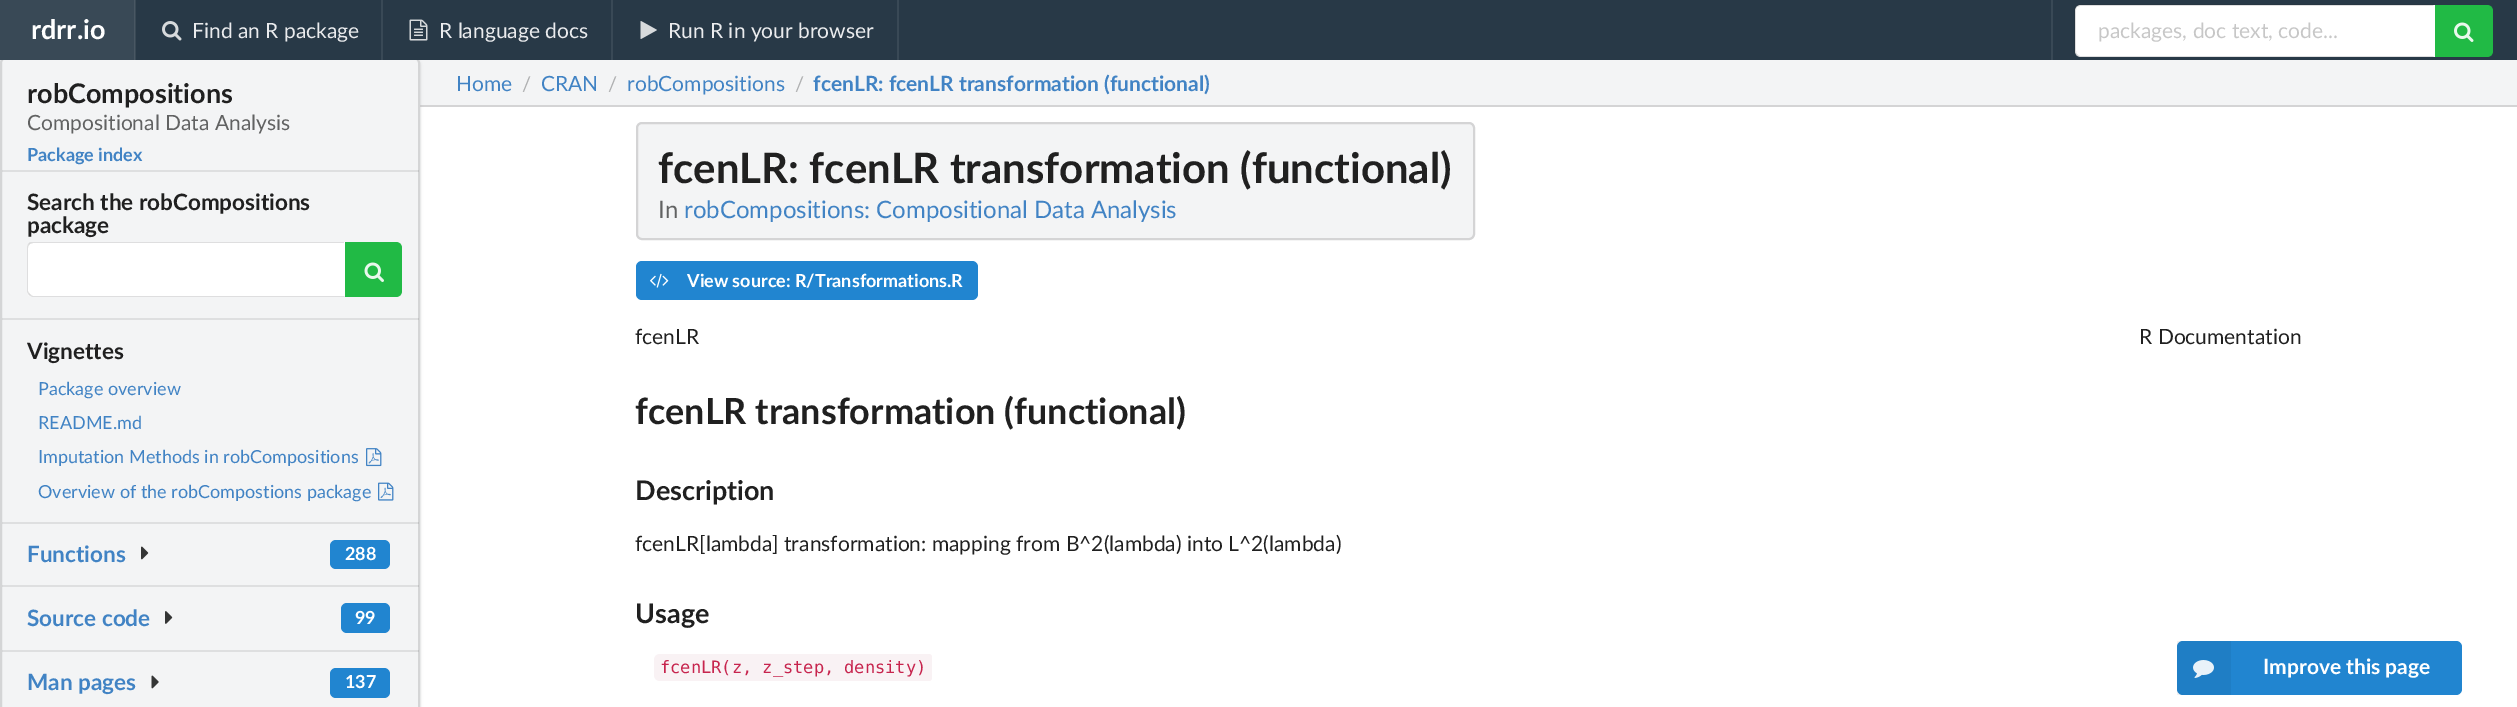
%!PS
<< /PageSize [2517 707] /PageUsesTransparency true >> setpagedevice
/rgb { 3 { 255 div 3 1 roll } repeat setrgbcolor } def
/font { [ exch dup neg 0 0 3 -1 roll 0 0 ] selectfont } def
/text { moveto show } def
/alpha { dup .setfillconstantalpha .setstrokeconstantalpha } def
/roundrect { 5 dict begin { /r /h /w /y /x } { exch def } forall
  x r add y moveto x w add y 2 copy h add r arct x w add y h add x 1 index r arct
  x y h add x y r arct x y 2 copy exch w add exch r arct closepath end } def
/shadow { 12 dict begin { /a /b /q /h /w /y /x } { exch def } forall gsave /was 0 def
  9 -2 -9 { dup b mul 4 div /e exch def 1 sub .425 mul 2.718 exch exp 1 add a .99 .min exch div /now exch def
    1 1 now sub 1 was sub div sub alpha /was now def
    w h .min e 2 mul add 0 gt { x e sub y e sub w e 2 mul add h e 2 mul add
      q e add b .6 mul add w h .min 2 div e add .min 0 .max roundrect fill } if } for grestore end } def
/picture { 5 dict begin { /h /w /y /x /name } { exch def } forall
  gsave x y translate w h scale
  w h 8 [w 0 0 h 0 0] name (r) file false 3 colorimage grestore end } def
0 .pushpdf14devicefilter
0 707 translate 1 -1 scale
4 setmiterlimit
255 255 255 rgb
0 0 2517 707 rectfill
243 244 245 rgb
420 60 2097 45 rectfill
212 212 213 rgb
420 105 2097 2 rectfill
34 36 38 rgb
0 59 420 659 6 1.5 0.15 shadow
243 244 245 rgb
1 58 418 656 5 roundrect gsave fill grestore
212 213 214 rgb
2 setlinewidth
stroke
40 57 71 rgb
135 0 2382 60 rectfill
57 73 86 rgb
0 0 135 60 rectfill
0.08 alpha
255 255 255 rgb
134 0 2 60 rectfill
1 alpha
(img_01.rgb) 162 21 20 20 picture
57 73 86 rgb
381 0 2 60 rectfill
(img_02.rgb) 409 19 19 22 picture
611 0 2 60 rectfill
(img_03.rgb) 640 21 17 18 picture
897 0 2 60 rectfill
2051 0 2 60 rectfill
255 255 255 rgb
2081 5 moveto 354 0 rlineto 0 52 rlineto -354 0 rlineto -3.5 0 -6 -2.5 -6 -6 rcurveto 0 -40 rlineto 0 -3.5 2.5 -6 6 -6 rcurveto closepath fill
0.15 alpha
34 36 38 rgb
2080 6 moveto -3 1 rlineto -1 -1 rlineto 2 -2 rlineto 356 0 rlineto -1 2 rlineto closepath fill
2080 57 moveto 354 0 rlineto -1 -1 rlineto -353 0 rlineto -1 0 -2 -1 -3 -2 rcurveto -1 1 rlineto 1 1 3 2 4 2 rcurveto closepath fill
2074 8 moveto 2 -2 rlineto 1 1 rlineto -1 1 -1 2 -1 3 rcurveto 0 41 rlineto 0 1 0 2 1 3 rcurveto -1 1 rlineto -2 -2 rlineto closepath fill
1 alpha
33 186 69 rgb
2435 5 moveto 52 0 rlineto 3.5 0 6 2.5 6 6 rcurveto 0 40 rlineto 0 3.5 -2.5 6 -6 6 rcurveto -52 0 rlineto closepath fill
(img_04.rgb) 2454 22 20 20 picture
0.1 alpha
34 36 38 rgb
2 170 417 2 rectfill
1 alpha
255 255 255 rgb
33 242 moveto 312 0 rlineto 0 55 rlineto -312 0 rlineto -3.5 0 -6 -2.5 -6 -6 rcurveto 0 -43 rlineto 0 -3.5 2.5 -6 6 -6 rcurveto closepath fill
0.15 alpha
34 36 38 rgb
33 242 moveto -1 0 -3 0 -4 1 rcurveto 1 1 rlineto 3 -1 rlineto 311 0 rlineto 0 -1 rlineto closepath fill
345 297 moveto -1 -1 rlineto -311 0 rlineto -1 0 -2 -1 -3 -2 rcurveto -1 1 rlineto 1 1 3 2 4 2 rcurveto closepath fill
27 248 moveto 0 43 rlineto 0 1 1 3 2 4 rcurveto 1 -1 rlineto -1 -1 -2 -2 -2 -3 rcurveto 0 -43 rlineto 0 -2 1 -3 2 -4 rcurveto -1 -1 rlineto -1 1 -2 3 -2 5 rcurveto closepath fill
1 alpha
33 186 69 rgb
345 242 moveto 51 0 rlineto 3.5 0 6 2.5 6 6 rcurveto 0 43 rlineto 0 3.5 -2.5 6 -6 6 rcurveto -51 0 rlineto closepath fill
(img_05.rgb) 364 262 20 20 picture
0.1 alpha
34 36 38 rgb
2 318 417 2 rectfill
1 alpha
(img_06.rgb) 366 448 16 19 picture
(img_07.rgb) 378 482 16 19 picture
0.1 alpha
2 522 417 2 rectfill
1 alpha
(img_08.rgb) 141 546 8 14 picture
33 133 208 rgb
330 540 60 29 6 roundrect fill
0.1 alpha
34 36 38 rgb
2 585 417 2 rectfill
1 alpha
(img_09.rgb) 165 611 8 13 picture
33 133 208 rgb
341 603 49 30 6 roundrect fill
0.1 alpha
34 36 38 rgb
2 650 417 2 rectfill
1 alpha
(img_10.rgb) 151 675 8 14 picture
33 133 208 rgb
330 668 60 30 6 roundrect fill
243 244 245 rgb
637 123 837 116 5 roundrect gsave fill grestore
212 212 213 rgb
stroke
33 133 208 rgb
636 261 342 39 6 roundrect fill
(img_11.rgb) 650 273 19 15 picture
249 242 244 rgb
660 654 moveto 266 0 rlineto 0 27 rlineto -266 0 rlineto -3.5 0 -6 -2.5 -6 -6 rcurveto 0 -15 rlineto 0 -3.5 2.5 -6 6 -6 rcurveto closepath fill
926 654 moveto 3 0 rlineto 1.5 0 3 1.5 3 3 rcurveto 0 21 rlineto 0 1.5 -1.5 3 -3 3 rcurveto -3 0 rlineto closepath fill
33 133 208 rgb
2177 641 285 54 6 roundrect fill
0.05 alpha
0 0 0 rgb
2177 641 54 54 rectfill
1 alpha
(img_12.rgb) 2193 660 21 18 picture
/Lato-Bold 27 font
255 255 255 rgb
(rdrr.io) 31 39 text
/Lato-Regular 21 font
234 235 237 rgb
(Find an R package) 192 38 text
(R language docs) 439 38 text
(Run R in your browser) 668 38 text
199 199 199 rgb
(packages, doc text, code...) 2098 38 text
/Lato-Bold 27 font
32 32 32 rgb
(robCompositions) 27 103 text
/Lato-Regular 21 font
97 98 98 rgb
(Compositional Data Analysis) 27 130 text
/Lato-Bold 18 font
65 131 196 rgb
(Package index) 27 161 text
/Lato-Bold 22.5 font
32 32 32 rgb
(Search the robCompositions) 27 210 text
(package) 27 233 text
(Vignettes) 27 359 text
/Lato-Regular 18 font
65 131 196 rgb
(Package overview) 38 395 text
(README.md) 38 429 text
(Imputation Methods in robCompositions) 38 463 text
(Overview of the robCompostions package) 38 498 text
/Lato-Bold 22.5 font
(Functions) 27 562 text
/Lato-Bold 18 font
255 255 255 rgb
(288) 345 560 text
/Lato-Bold 22.5 font
65 131 196 rgb
(Source code) 27 626 text
/Lato-Bold 18 font
255 255 255 rgb
(99) 355 624 text
/Lato-Bold 22.5 font
65 131 196 rgb
(Man pages) 27 690 text
/Lato-Bold 18 font
255 255 255 rgb
(137) 345 688 text
/Lato-Regular 21 font
65 131 196 rgb
(Home) 456 91 text
/Lato-Regular 20 font
175 176 177 rgb
(/) 522 91 text
/Lato-Regular 21 font
65 131 196 rgb
(CRAN) 541 91 text
/Lato-Regular 20 font
175 176 177 rgb
(/) 608 91 text
/Lato-Regular 21 font
65 131 196 rgb
(robCompositions) 627 91 text
/Lato-Regular 20 font
175 176 177 rgb
(/) 795 91 text
/Lato-Bold 21 font
65 131 196 rgb
(fcenLR: fcenLR transformation \(functional\)) 813 91 text
/Lato-Bold 42 font
32 32 32 rgb
(fcenLR: fcenLR transformation \(functional\)) 658 183 text
/Lato-Regular 24 font
97 98 98 rgb
(In) 658 218 text
65 131 196 rgb
(robCompositions: Compositional Data Analysis) 684 218 text
/Lato-Bold 18 font
255 255 255 rgb
(View source: R/Transformations.R) 687 287 text
/Lato-Regular 21 font
32 32 32 rgb
(fcenLR) 635 344 text
(R Documentation) 2139 344 text
/Lato-Bold 36 font
(fcenLR transformation \(functional\)) 635 424 text
/Lato-Bold 27 font
(Description) 635 500 text
/Lato-Regular 21 font
(fcenLR[lambda] transformation: mapping from B^2\(lambda\) into L^2\(lambda\)) 635 551 text
/Lato-Bold 27 font
(Usage) 635 623 text
/DejaVuSansMono-Regular 17 font
199 37 78 rgb
(fcenLR\(z, z_step, density\)) 660 673 text
/Lato-Bold 21 font
255 255 255 rgb
(Improve this page) 2263 674 text
.poppdf14devicefilter showpage
